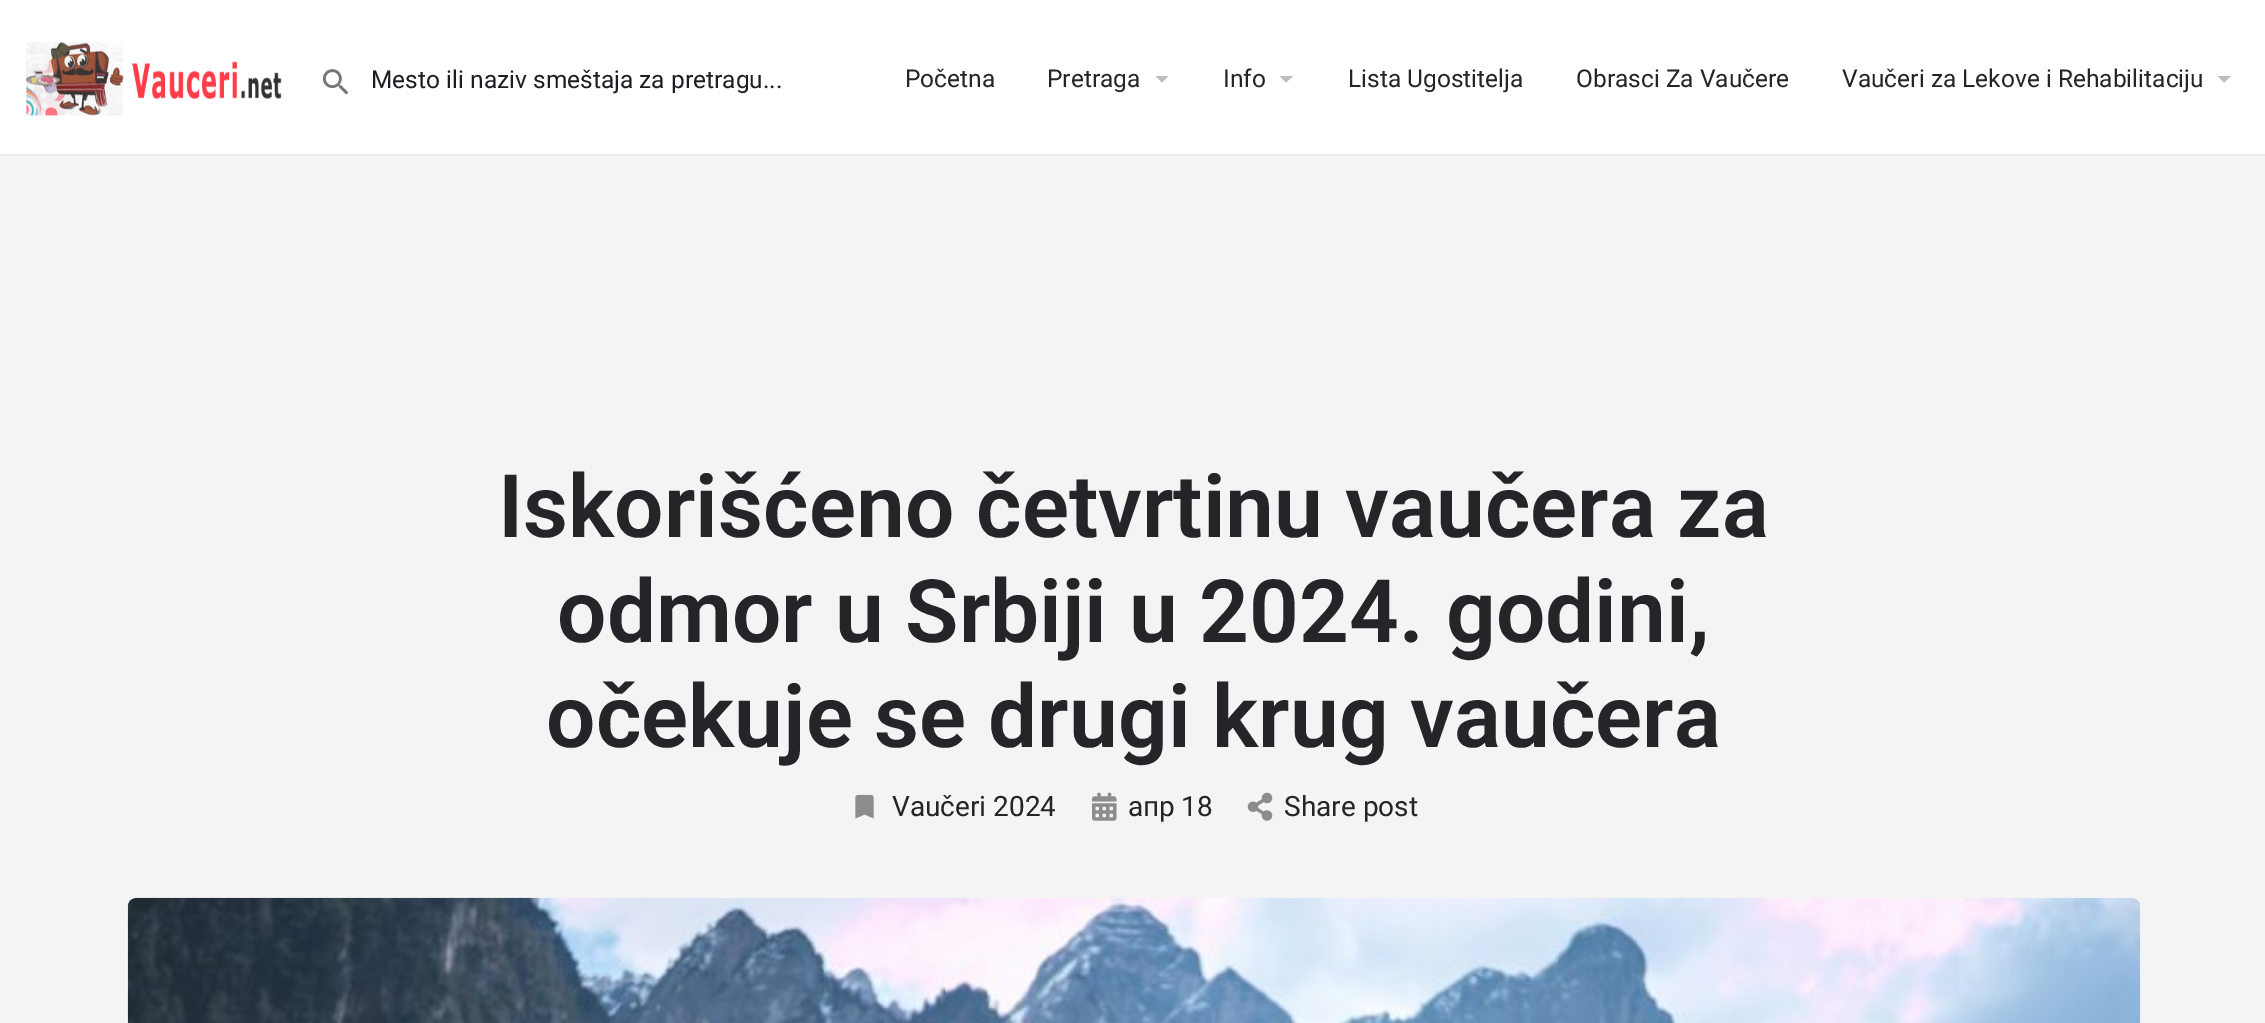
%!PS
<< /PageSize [2265 1023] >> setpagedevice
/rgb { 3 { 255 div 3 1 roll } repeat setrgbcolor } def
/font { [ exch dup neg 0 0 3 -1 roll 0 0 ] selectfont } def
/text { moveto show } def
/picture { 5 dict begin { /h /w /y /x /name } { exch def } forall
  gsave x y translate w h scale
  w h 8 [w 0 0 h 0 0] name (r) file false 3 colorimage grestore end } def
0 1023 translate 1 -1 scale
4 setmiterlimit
244 244 244 rgb
0 0 2265 1023 rectfill
255 255 255 rgb
0 0 2265 154 rectfill
235 235 235 rgb
0 154 2265 2 rectfill
(img_01.rgb) 26 41 256 75 picture
(img_02.rgb) 322 69 27 26 picture
189 189 191 rgb
1155.5 76 moveto 13 0 rlineto -6.5 6.5 rlineto closepath fill
1279.5 76 moveto 13.5 0 rlineto -7 6.5 rlineto closepath fill
2217.5 76 moveto 13.5 0 rlineto -7 6.5 rlineto closepath fill
(img_03.rgb) 855 794 19 25 picture
(img_04.rgb) 1092 792 25 29 picture
(img_05.rgb) 1247 792 26 29 picture
(img_06.rgb) 127 897 2014 126 picture
/Roboto-Regular 24.5 font
29 29 35 rgb
(Mesto ili naziv smeštaja za pretragu...) 371 88 text
36 36 41 rgb
(Početna) 905 87 text
(Pretraga) 1047 87 text
(Info) 1223 87 text
(Lista Ugostitelja) 1348 87 text
(Obrasci Za Vaučere) 1576 87 text
(Vaučeri za Lekove i Rehabilitaciju) 1842 87 text
/Roboto-SemiBold 87.5 font
(Iskorišćeno četvrtinu vaučera za) 498 537 text
(odmor u Srbiji u 2024. godini,) 557 642 text
(očekuje se drugi krug vaučera) 546 747 text
/Roboto-Regular 28 font
(Vaučeri 2024) 892 816 text
(апр) 1128 816 text
(18) 1181 816 text
(Share post) 1284 816 text
showpage
